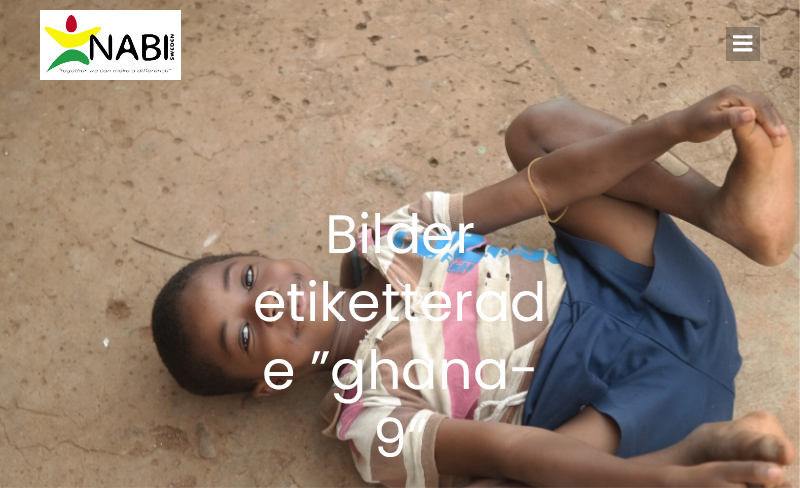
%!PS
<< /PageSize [800 488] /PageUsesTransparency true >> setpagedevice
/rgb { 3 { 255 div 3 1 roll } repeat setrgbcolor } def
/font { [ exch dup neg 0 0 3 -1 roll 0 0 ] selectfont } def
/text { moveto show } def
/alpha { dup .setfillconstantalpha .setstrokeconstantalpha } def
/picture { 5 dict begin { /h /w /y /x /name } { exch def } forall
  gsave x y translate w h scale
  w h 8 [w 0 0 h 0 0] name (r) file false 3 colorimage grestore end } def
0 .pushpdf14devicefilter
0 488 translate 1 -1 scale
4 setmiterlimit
255 255 255 rgb
0 0 800 488 rectfill
(img_01.rgb) 0 0 800 488 picture
(img_04.rgb) 0 0 800 488 picture
(img_02.rgb) 40 10 141 70 picture
0.3 alpha
31 31 31 rgb
726 27 34 34 rectfill
1 alpha
(img_03.rgb) 733 35 20 17 picture
/Poppins-Regular 54 font
255 255 255 rgb
(Bilder) 325 253 text
(etiketterad) 253 321 text
(e ”ghana-) 262 389 text
(9”) 373 457 text
.poppdf14devicefilter showpage
